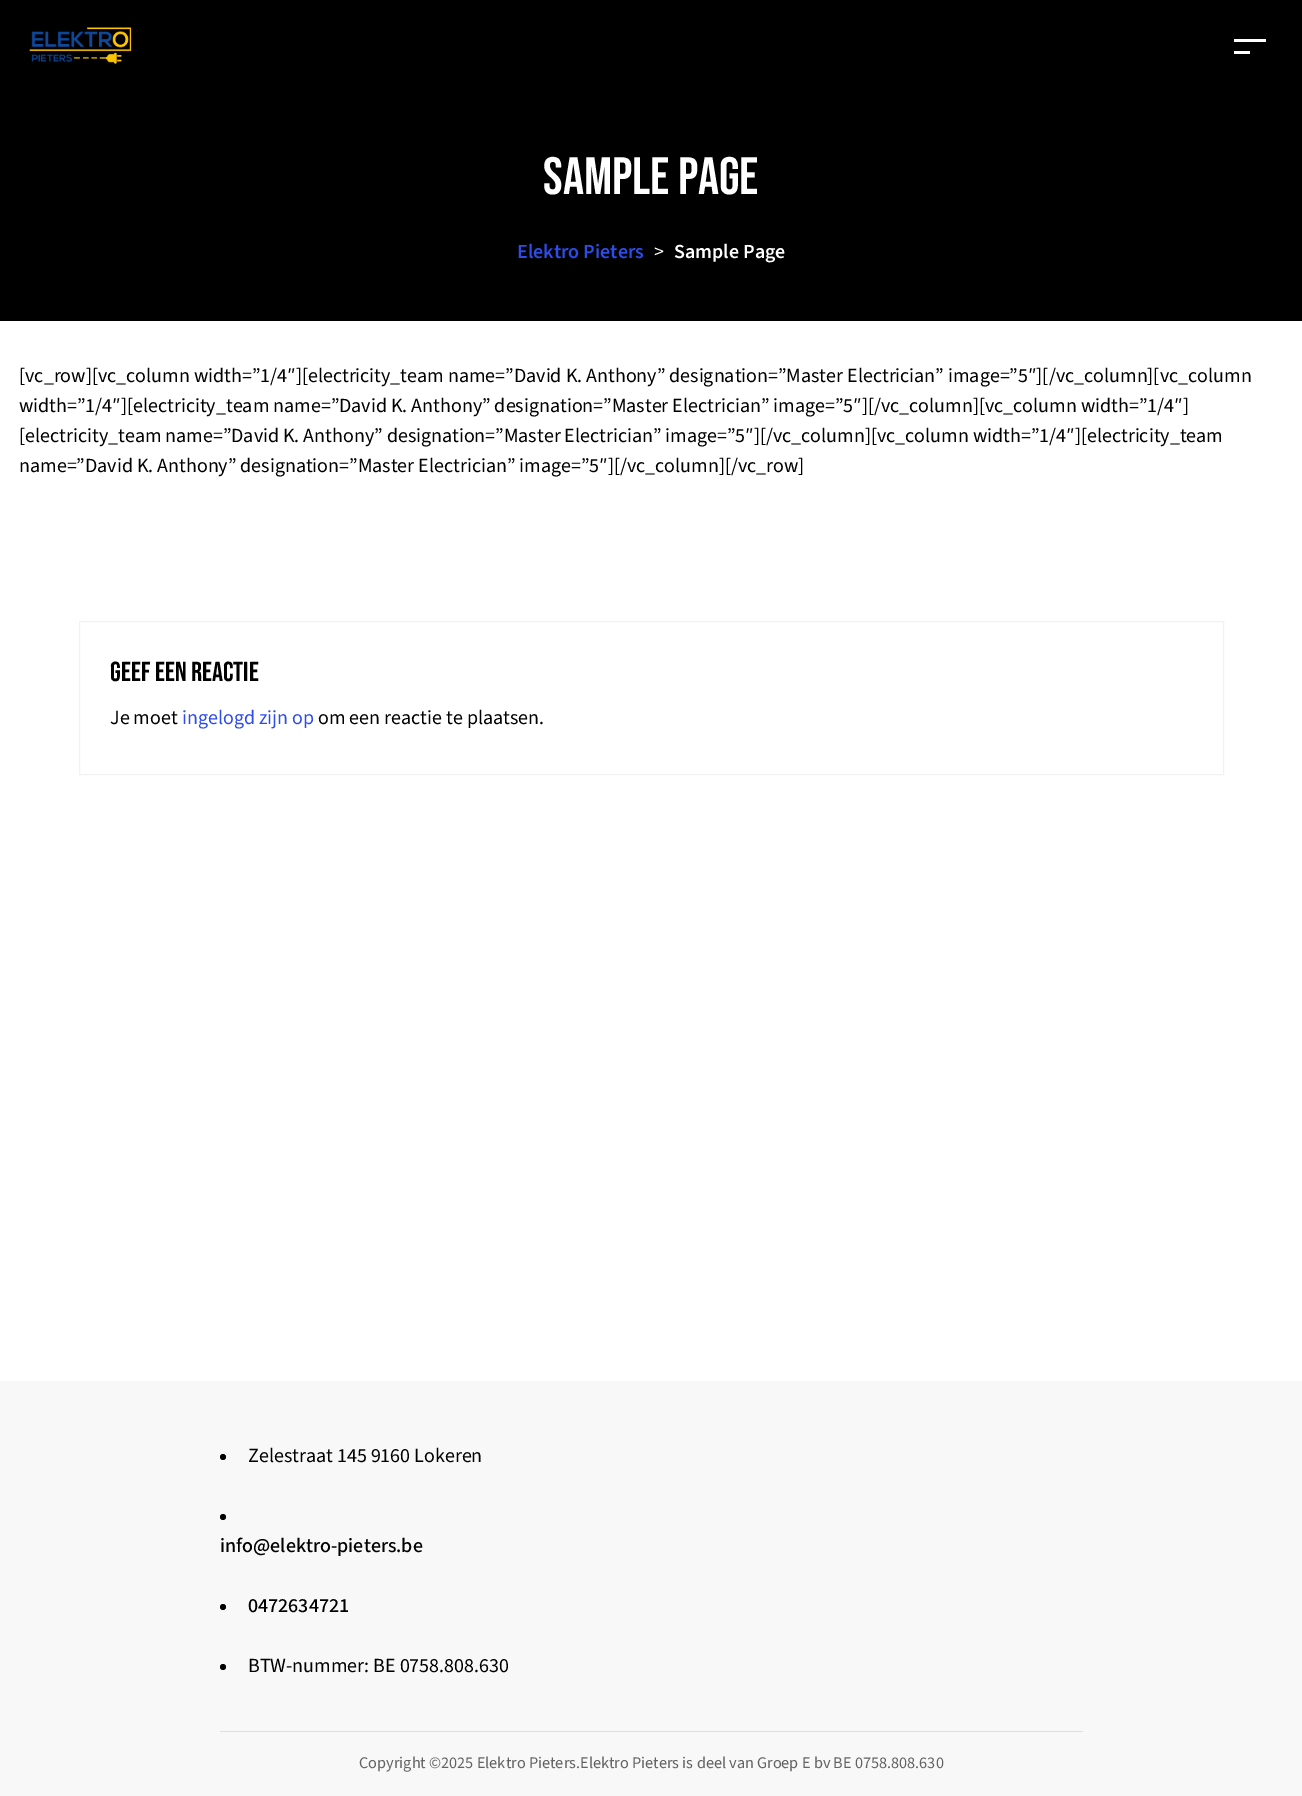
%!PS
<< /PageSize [1302 1796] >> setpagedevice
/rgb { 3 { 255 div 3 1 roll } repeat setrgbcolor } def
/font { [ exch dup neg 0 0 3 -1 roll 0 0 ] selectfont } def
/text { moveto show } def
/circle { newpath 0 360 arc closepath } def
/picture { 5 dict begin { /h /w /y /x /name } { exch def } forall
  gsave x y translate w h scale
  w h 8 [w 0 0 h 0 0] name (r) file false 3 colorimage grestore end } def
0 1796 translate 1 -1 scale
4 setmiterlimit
255 255 255 rgb
0 0 1302 1796 rectfill
0 0 0 rgb
0 0 1302 321 rectfill
(img_01.rgb) 29 27 103 37 picture
255 255 255 rgb
1234 39 32 3 rectfill
1234 51 16 3 rectfill
240 242 243 rgb
79.5 621.5 1144 153 rectstroke
248 248 248 rgb
0 1381 1302 415 rectfill
0 0 0 rgb
223 1457 3 circle fill
223 1517 3 circle fill
223 1607 3 circle fill
223 1667 3 circle fill
223 223 223 rgb
220 1731 863 1 rectfill
/BebasNeue-Regular 52.5 font
255 255 255 rgb
(Sample Page) 543 194 text
/SourceSans3-SemiBold 20 font
46 76 231 rgb
(Elektro Pieters) 517 258 text
/SourceSans3-Regular 20 font
255 255 255 rgb
(>) 654 258 text
/SourceSans3-SemiBold 20 font
(Sample Page) 674 258 text
/SourceSans3-Regular 20 font
0 0 0 rgb
([vc_row][vc_column width=”1/4″][electricity_team name=”David K. Anthony” designation=”Master Electrician” image=”5″][/vc_column][vc_column) 19 382 text
(width=”1/4″][electricity_team name=”David K. Anthony” designation=”Master Electrician” image=”5″][/vc_column][vc_column width=”1/4″]) 19 412 text
([electricity_team name=”David K. Anthony” designation=”Master Electrician” image=”5″][/vc_column][vc_column width=”1/4″][electricity_team) 19 442 text
(name=”David K. Anthony” designation=”Master Electrician” image=”5″][/vc_column][/vc_row]) 19 472 text
/BebasNeue-Regular 27.5 font
(Geef een reactie) 110 681 text
/SourceSans3-Regular 20 font
(Je moet) 110 724 text
46 76 231 rgb
(ingelogd zijn op) 182 724 text
0 0 0 rgb
(om een reactie te plaatsen.) 318 724 text
(Zelestraat 145 9160 Lokeren) 248 1462 text
/SourceSans3-Medium 20 font
(info@elektro-pieters.be) 220 1552 text
(0472634721) 248 1612 text
/SourceSans3-Regular 20 font
(BTW-nummer: BE 0758.808.630) 248 1672 text
/SourceSans3-Regular 16.25 font
99 99 99 rgb
(Copyright ©2025 Elektro Pieters.Elektro Pieters is deel van Groep E bv BE 0758.808.630) 359 1768 text
showpage
